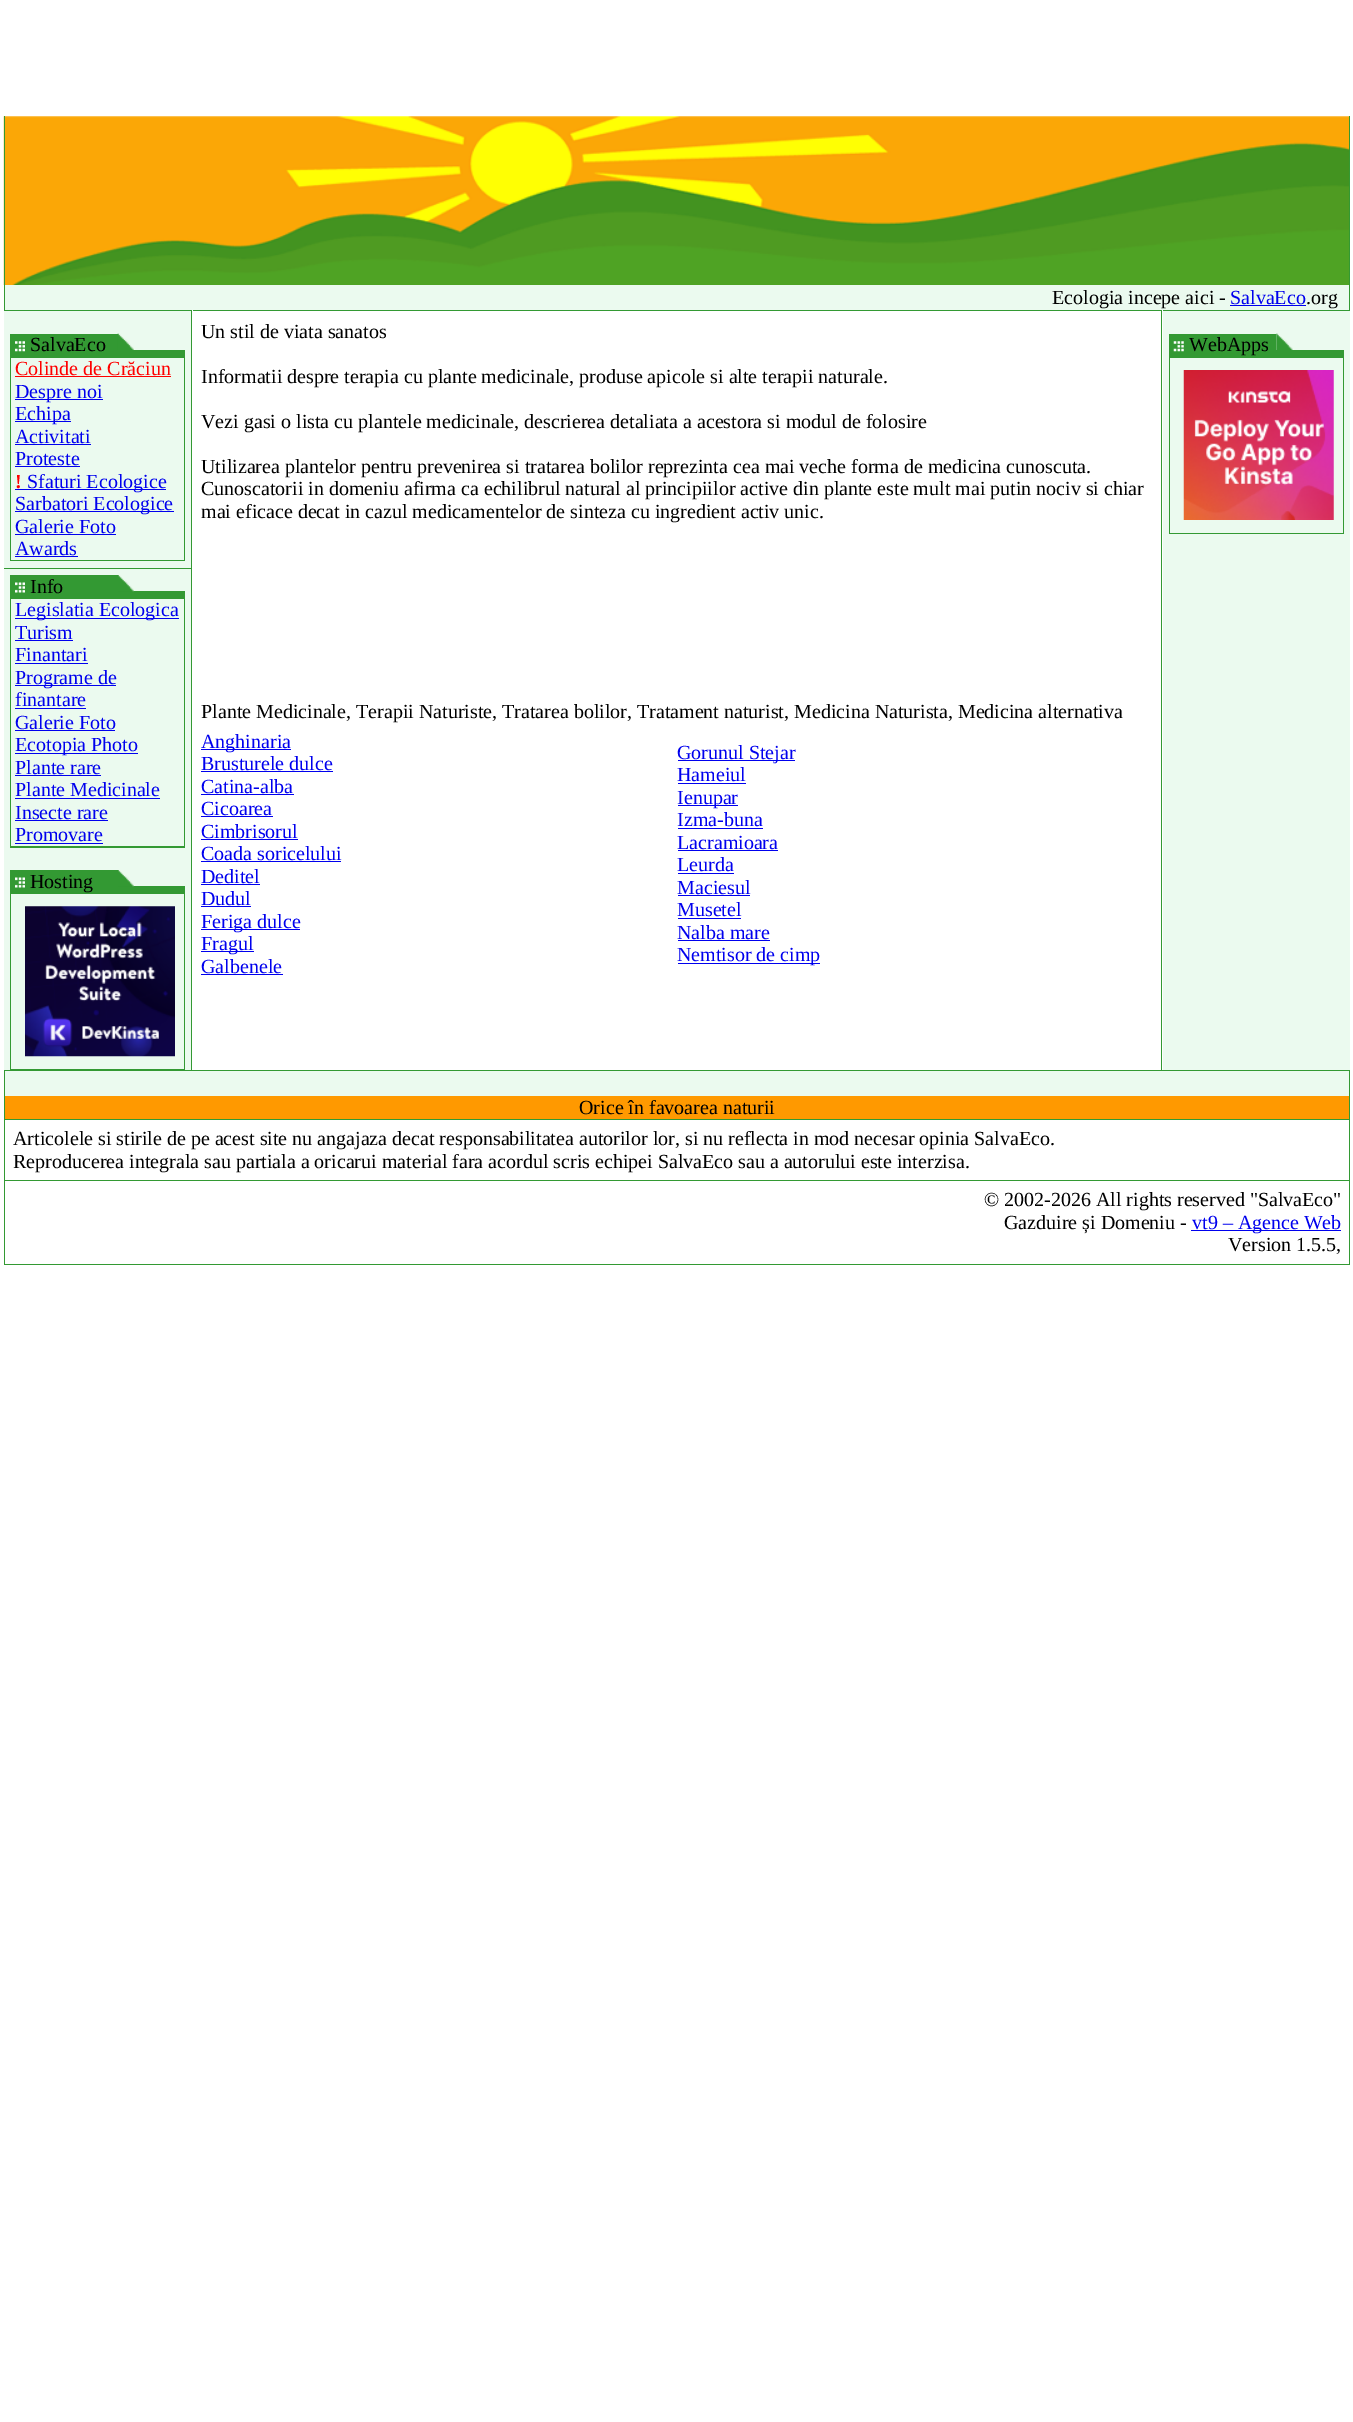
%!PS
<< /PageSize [1353 2422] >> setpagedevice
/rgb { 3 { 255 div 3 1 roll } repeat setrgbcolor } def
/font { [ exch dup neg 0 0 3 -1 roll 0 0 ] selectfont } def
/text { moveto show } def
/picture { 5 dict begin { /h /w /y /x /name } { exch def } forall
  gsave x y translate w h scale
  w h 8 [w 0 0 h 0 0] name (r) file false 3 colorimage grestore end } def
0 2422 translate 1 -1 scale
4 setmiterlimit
255 255 255 rgb
0 0 1353 2422 rectfill
(img_01.rgb) 3 116 1346 169 picture
51 153 51 rgb
4 116 1 194 rectfill
1349 116 1 194 rectfill
235 250 239 rgb
5 285 1344 25 rectfill
0 0 238 rgb
1230 305 76 1 rectfill
51 153 51 rgb
4 310 188 1 rectfill
193 310 969 1 rectfill
1163 310 187 1 rectfill
235 250 239 rgb
4 311 187 759 rectfill
51 153 51 rgb
10 334 108 22 rectfill
(img_02.rgb) 15 341 10 11 picture
(img_03.rgb) 117 333 17 17 picture
118 350 67 6 rectfill
10 356 175 205 rectfill
235 250 239 rgb
11 358 173 202 rectfill
255 0 0 rgb
15 376 156 1 rectfill
0 0 238 rgb
15 399 88 1 rectfill
15 421 56 1 rectfill
15 444 76 1 rectfill
15 466 65 1 rectfill
15 489 151 1 rectfill
15 511 159 1 rectfill
15 534 101 1 rectfill
15 556 63 1 rectfill
51 153 51 rgb
4 568 187 1 rectfill
10 575 108 23 rectfill
(img_04.rgb) 15 582 10 11 picture
118 591 67 7 rectfill
(img_05.rgb) 118 575 16 17 picture
10 598 175 250 rectfill
235 250 239 rgb
11 599 173 247 rectfill
0 0 238 rgb
15 618 164 1 rectfill
15 640 58 1 rectfill
15 663 73 1 rectfill
15 685 101 1 rectfill
15 708 71 1 rectfill
15 730 100 1 rectfill
15 753 123 1 rectfill
15 775 86 1 rectfill
15 798 145 1 rectfill
15 820 93 1 rectfill
15 843 88 1 rectfill
51 153 51 rgb
10 870 108 23 rectfill
(img_04.rgb) 15 877 10 11 picture
118 886 67 7 rectfill
(img_05.rgb) 118 870 16 17 picture
10 893 175 177 rectfill
235 250 239 rgb
11 894 173 175 rectfill
(img_06.rgb) 25 906 150 151 picture
51 153 51 rgb
191 311 1 759 rectfill
0 0 238 rgb
201 749 90 1 rectfill
201 771 132 1 rectfill
201 794 93 1 rectfill
201 816 72 1 rectfill
201 839 97 1 rectfill
201 861 140 1 rectfill
201 884 59 1 rectfill
201 906 50 1 rectfill
201 929 99 1 rectfill
201 951 53 1 rectfill
201 974 82 1 rectfill
678 760 117 1 rectfill
678 783 68 1 rectfill
678 805 60 1 rectfill
678 828 85 1 rectfill
678 850 100 1 rectfill
678 873 56 1 rectfill
678 895 72 1 rectfill
678 918 63 1 rectfill
678 940 92 1 rectfill
678 963 142 1 rectfill
51 153 51 rgb
1161 311 1 759 rectfill
235 250 239 rgb
1163 311 187 759 rectfill
51 153 51 rgb
1169 334 107 22 rectfill
(img_07.rgb) 1173 341 11 11 picture
(img_08.rgb) 1276 333 17 17 picture
1276 350 68 6 rectfill
1169 356 175 178 rectfill
235 250 239 rgb
1170 358 173 175 rectfill
(img_09.rgb) 1183 370 151 150 picture
51 153 51 rgb
4 1070 1346 1 rectfill
235 250 239 rgb
5 1071 1344 25 rectfill
51 153 51 rgb
4 1071 1 48 rectfill
1349 1071 1 48 rectfill
255 153 0 rgb
5 1096 1344 23 rectfill
51 153 51 rgb
4 1119 1346 1 rectfill
4 1120 1 60 rectfill
1349 1120 1 60 rectfill
4 1180 1346 1 rectfill
4 1181 1 84 rectfill
0 0 238 rgb
1191 1230 150 1 rectfill
51 153 51 rgb
1349 1181 1 84 rectfill
5 1264 1344 1 rectfill
/LiberationSerif-Regular 20 font
0 0 0 rgb
(Ecologia incepe aici -) 1052 304 text
0 0 238 rgb
(SalvaEco) 1230 304 text
0 0 0 rgb
(.org) 1306 304 text
(SalvaEco) 30 351 text
255 0 0 rgb
(Colinde de Crăciun) 15 375 text
0 0 238 rgb
(Despre noi) 15 398 text
(Echipa) 15 420 text
(Activitati) 15 443 text
(Proteste) 15 465 text
/LiberationSerif-Bold 20 font
255 0 0 rgb
(!) 15 488 text
/LiberationSerif-Regular 20 font
0 0 238 rgb
(Sfaturi Ecologice) 27 488 text
(Sarbatori Ecologice) 15 510 text
(Galerie Foto) 15 533 text
(Awards) 15 555 text
0 0 0 rgb
(Info) 30 593 text
0 0 238 rgb
(Legislatia Ecologica) 15 616 text
(Turism) 15 639 text
(Finantari) 15 661 text
(Programe de) 15 684 text
(finantare) 15 706 text
(Galerie Foto) 15 729 text
(Ecotopia Photo) 15 751 text
(Plante rare) 15 774 text
(Plante Medicinale) 15 796 text
(Insecte rare) 15 819 text
(Promovare) 15 841 text
0 0 0 rgb
(Hosting) 30 888 text
(Un stil de viata sanatos) 201 338 text
(Informatii despre terapia cu plante medicinale, produse apicole si alte terapii naturale.) 201 383 text
(Vezi gasi o lista cu plantele medicinale, descrierea detaliata a acestora si modul de folosire) 201 428 text
(Utilizarea plantelor pentru prevenirea si tratarea bolilor reprezinta cea mai veche forma de medicina cunoscuta.) 201 473 text
(Cunoscatorii in domeniu afirma ca echilibrul natural al principiilor active din plante este mult mai putin nociv si chiar) 201 495 text
(mai eficace decat in cazul medicamentelor de sinteza cu ingredient activ unic.) 201 518 text
(Plante Medicinale, Terapii Naturiste, Tratarea bolilor, Tratament naturist, Medicina Naturista, Medicina alternativa) 201 718 text
0 0 238 rgb
(Anghinaria) 201 748 text
(Brusturele dulce) 201 770 text
(Catina-alba) 201 793 text
(Cicoarea) 201 815 text
(Cimbrisorul) 201 838 text
(Coada soricelului) 201 860 text
(Deditel) 201 883 text
(Dudul) 201 905 text
(Feriga dulce) 201 928 text
(Fragul) 201 950 text
(Galbenele) 201 973 text
(Gorunul Stejar) 677 759 text
(Hameiul) 677 781 text
(Ienupar) 677 804 text
(Izma-buna) 677 826 text
(Lacramioara) 677 849 text
(Leurda) 677 871 text
(Maciesul) 677 894 text
(Musetel) 677 916 text
(Nalba mare) 677 939 text
(Nemtisor de cimp) 677 961 text
0 0 0 rgb
(WebApps) 1189 351 text
(Orice în favoarea naturii) 579 1114 text
(Articolele si stirile de pe acest site nu angajaza decat responsabilitatea autorilor lor, si nu reflecta in mod necesar opinia SalvaEco.) 13 1145 text
(Reproducerea integrala sau partiala a oricarui material fara acordul scris echipei SalvaEco sau a autorului este interzisa.) 13 1168 text
(© 2002-2026 All rights reserved "SalvaEco") 984 1206 text
(Gazduire și Domeniu -) 1004 1229 text
0 0 238 rgb
(vt9 – Agence Web) 1192 1229 text
0 0 0 rgb
(Version 1.5.5,) 1228 1251 text
showpage
